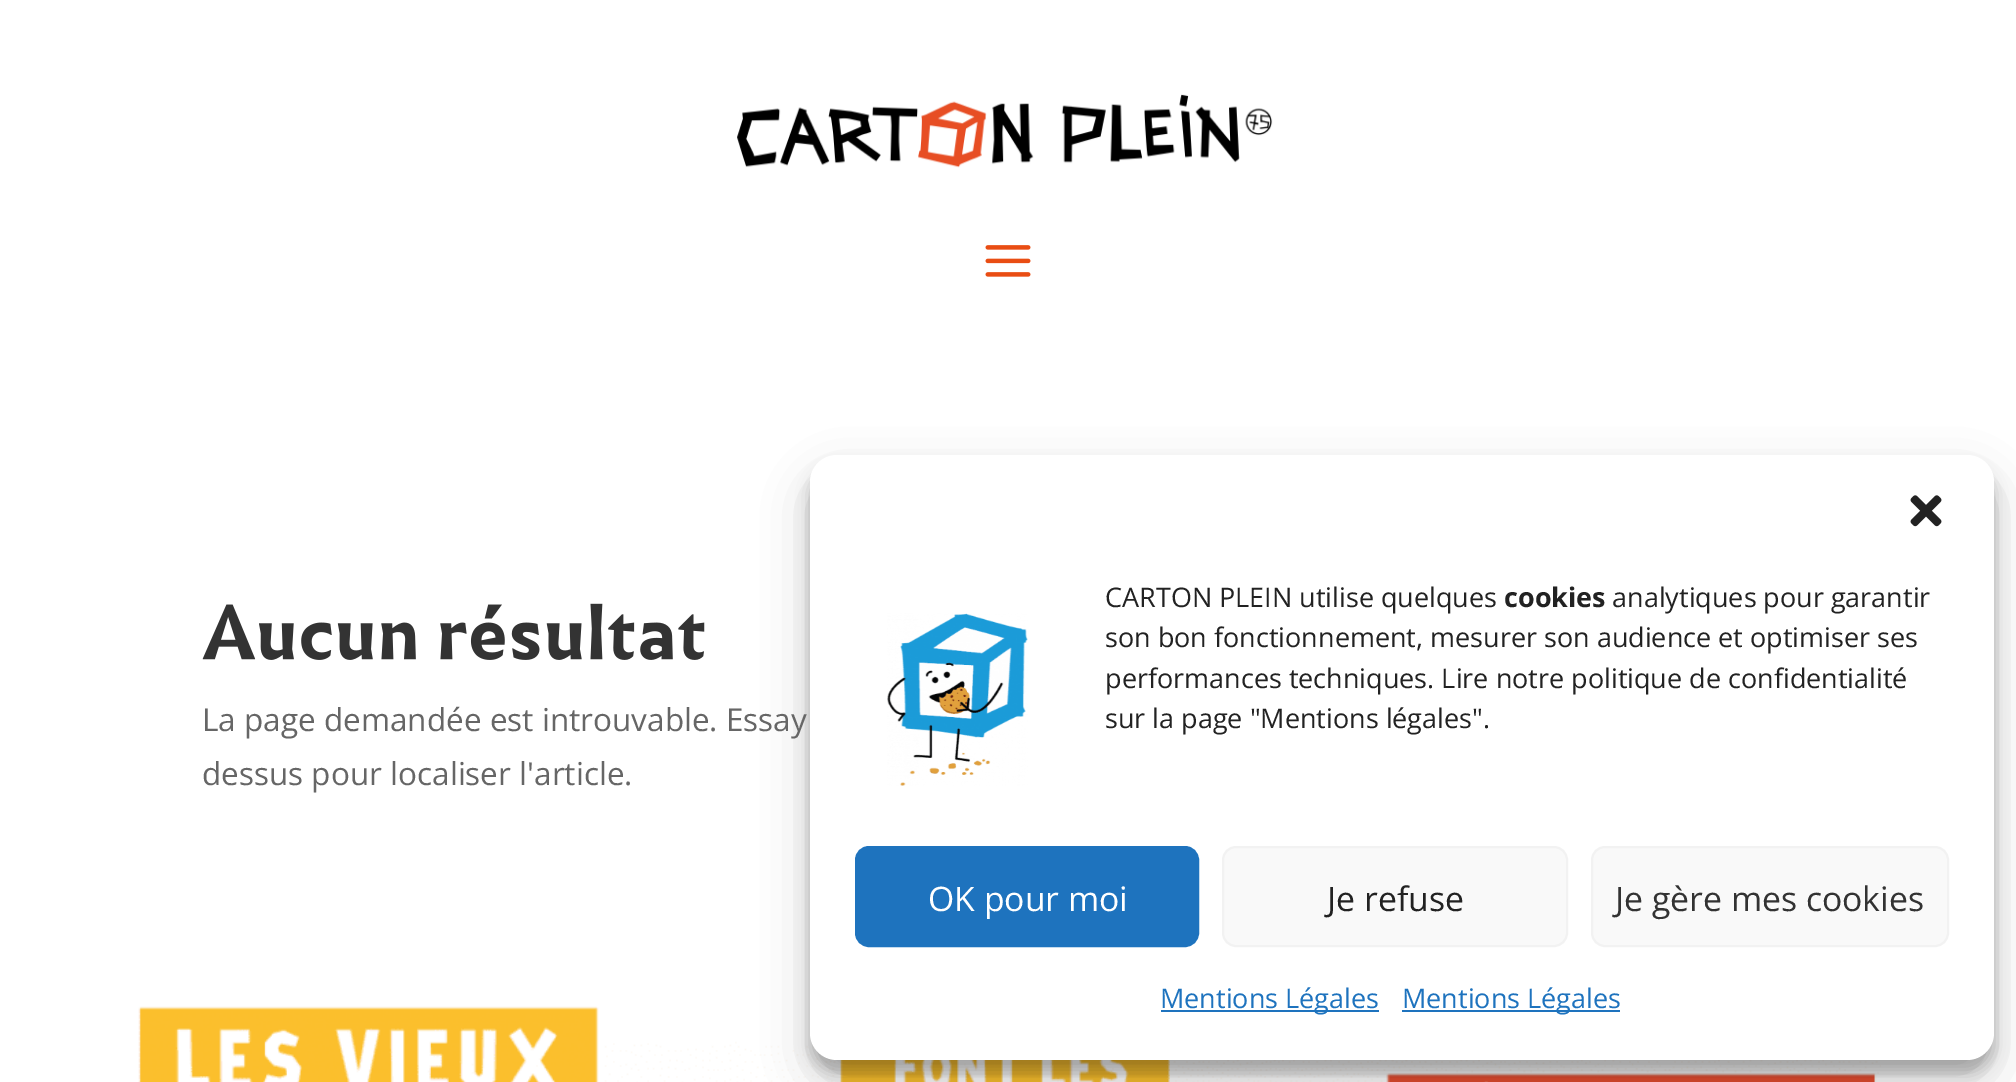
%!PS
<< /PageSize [2016 1082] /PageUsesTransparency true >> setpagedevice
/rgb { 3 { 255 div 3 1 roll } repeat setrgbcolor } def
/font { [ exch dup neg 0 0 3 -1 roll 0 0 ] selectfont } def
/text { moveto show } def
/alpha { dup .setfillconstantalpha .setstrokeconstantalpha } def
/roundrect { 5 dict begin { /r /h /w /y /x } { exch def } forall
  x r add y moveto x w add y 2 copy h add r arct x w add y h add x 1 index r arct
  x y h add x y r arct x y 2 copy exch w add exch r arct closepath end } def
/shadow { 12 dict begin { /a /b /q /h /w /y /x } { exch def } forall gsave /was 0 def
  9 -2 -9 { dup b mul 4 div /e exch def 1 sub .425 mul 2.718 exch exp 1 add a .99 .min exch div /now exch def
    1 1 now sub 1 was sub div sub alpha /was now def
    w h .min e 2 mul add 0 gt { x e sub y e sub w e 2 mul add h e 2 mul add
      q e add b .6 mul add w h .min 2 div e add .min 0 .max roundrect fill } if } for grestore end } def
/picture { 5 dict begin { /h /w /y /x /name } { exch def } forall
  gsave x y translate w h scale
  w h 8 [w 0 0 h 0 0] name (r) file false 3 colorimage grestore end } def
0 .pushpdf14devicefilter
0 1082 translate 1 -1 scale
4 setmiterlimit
255 255 255 rgb
0 0 2016 1082 rectfill
(img_01.rgb) 737 94 536 74 picture
(img_02.rgb) 985 245 46 32 picture
(img_03.rgb) 202 603 503 57 picture
(img_04.rgb) 138 1006 1743 76 picture
0 0 0 rgb
810 468 1184 605 27 7 0.23 shadow
810 477 1184 605 27 22.5 0.19 shadow
255 255 255 rgb
810 455 1184 605 27 roundrect fill
(img_05.rgb) 1910 495 32 32 picture
(img_06.rgb) 887 613 141 173 picture
30 115 190 rgb
856 847 342 99 13 roundrect gsave fill grestore
2 setlinewidth
stroke
249 249 249 rgb
1223 847 344 99 13 roundrect gsave fill grestore
242 242 242 rgb
stroke
249 249 249 rgb
1592 847 356 99 13 roundrect gsave fill grestore
242 242 242 rgb
stroke
30 115 190 rgb
1161 1010 218 2 rectfill
1402 1010 218 2 rectfill
/OpenSans-Regular 31.5 font
102 102 102 rgb
(La page demandée est introuvable. Essay) 202 731 text
(dessus pour localiser l'article.) 202 785 text
/OpenSans-Regular 27 font
34 34 34 rgb
(CARTON PLEIN utilise quelques) 1105 607 text
/OpenSans-Bold 27 font
(cookies) 1504 607 text
/OpenSans-Regular 27 font
(analytiques pour garantir) 1612 607 text
(son bon fonctionnement, mesurer son audience et optimiser ses) 1105 647 text
(performances techniques. Lire notre politique de confidentialité) 1105 688 text
(sur la page "Mentions légales".) 1105 728 text
/OpenSans-Regular 33.75 font
255 255 255 rgb
(OK pour moi) 928 911 text
34 34 34 rgb
(Je refuse) 1327 911 text
51 51 51 rgb
(Je gère mes cookies) 1615 911 text
/OpenSans-Regular 27 font
30 115 190 rgb
(Mentions Légales) 1160 1008 text
(Mentions Légales) 1402 1008 text
.poppdf14devicefilter showpage
